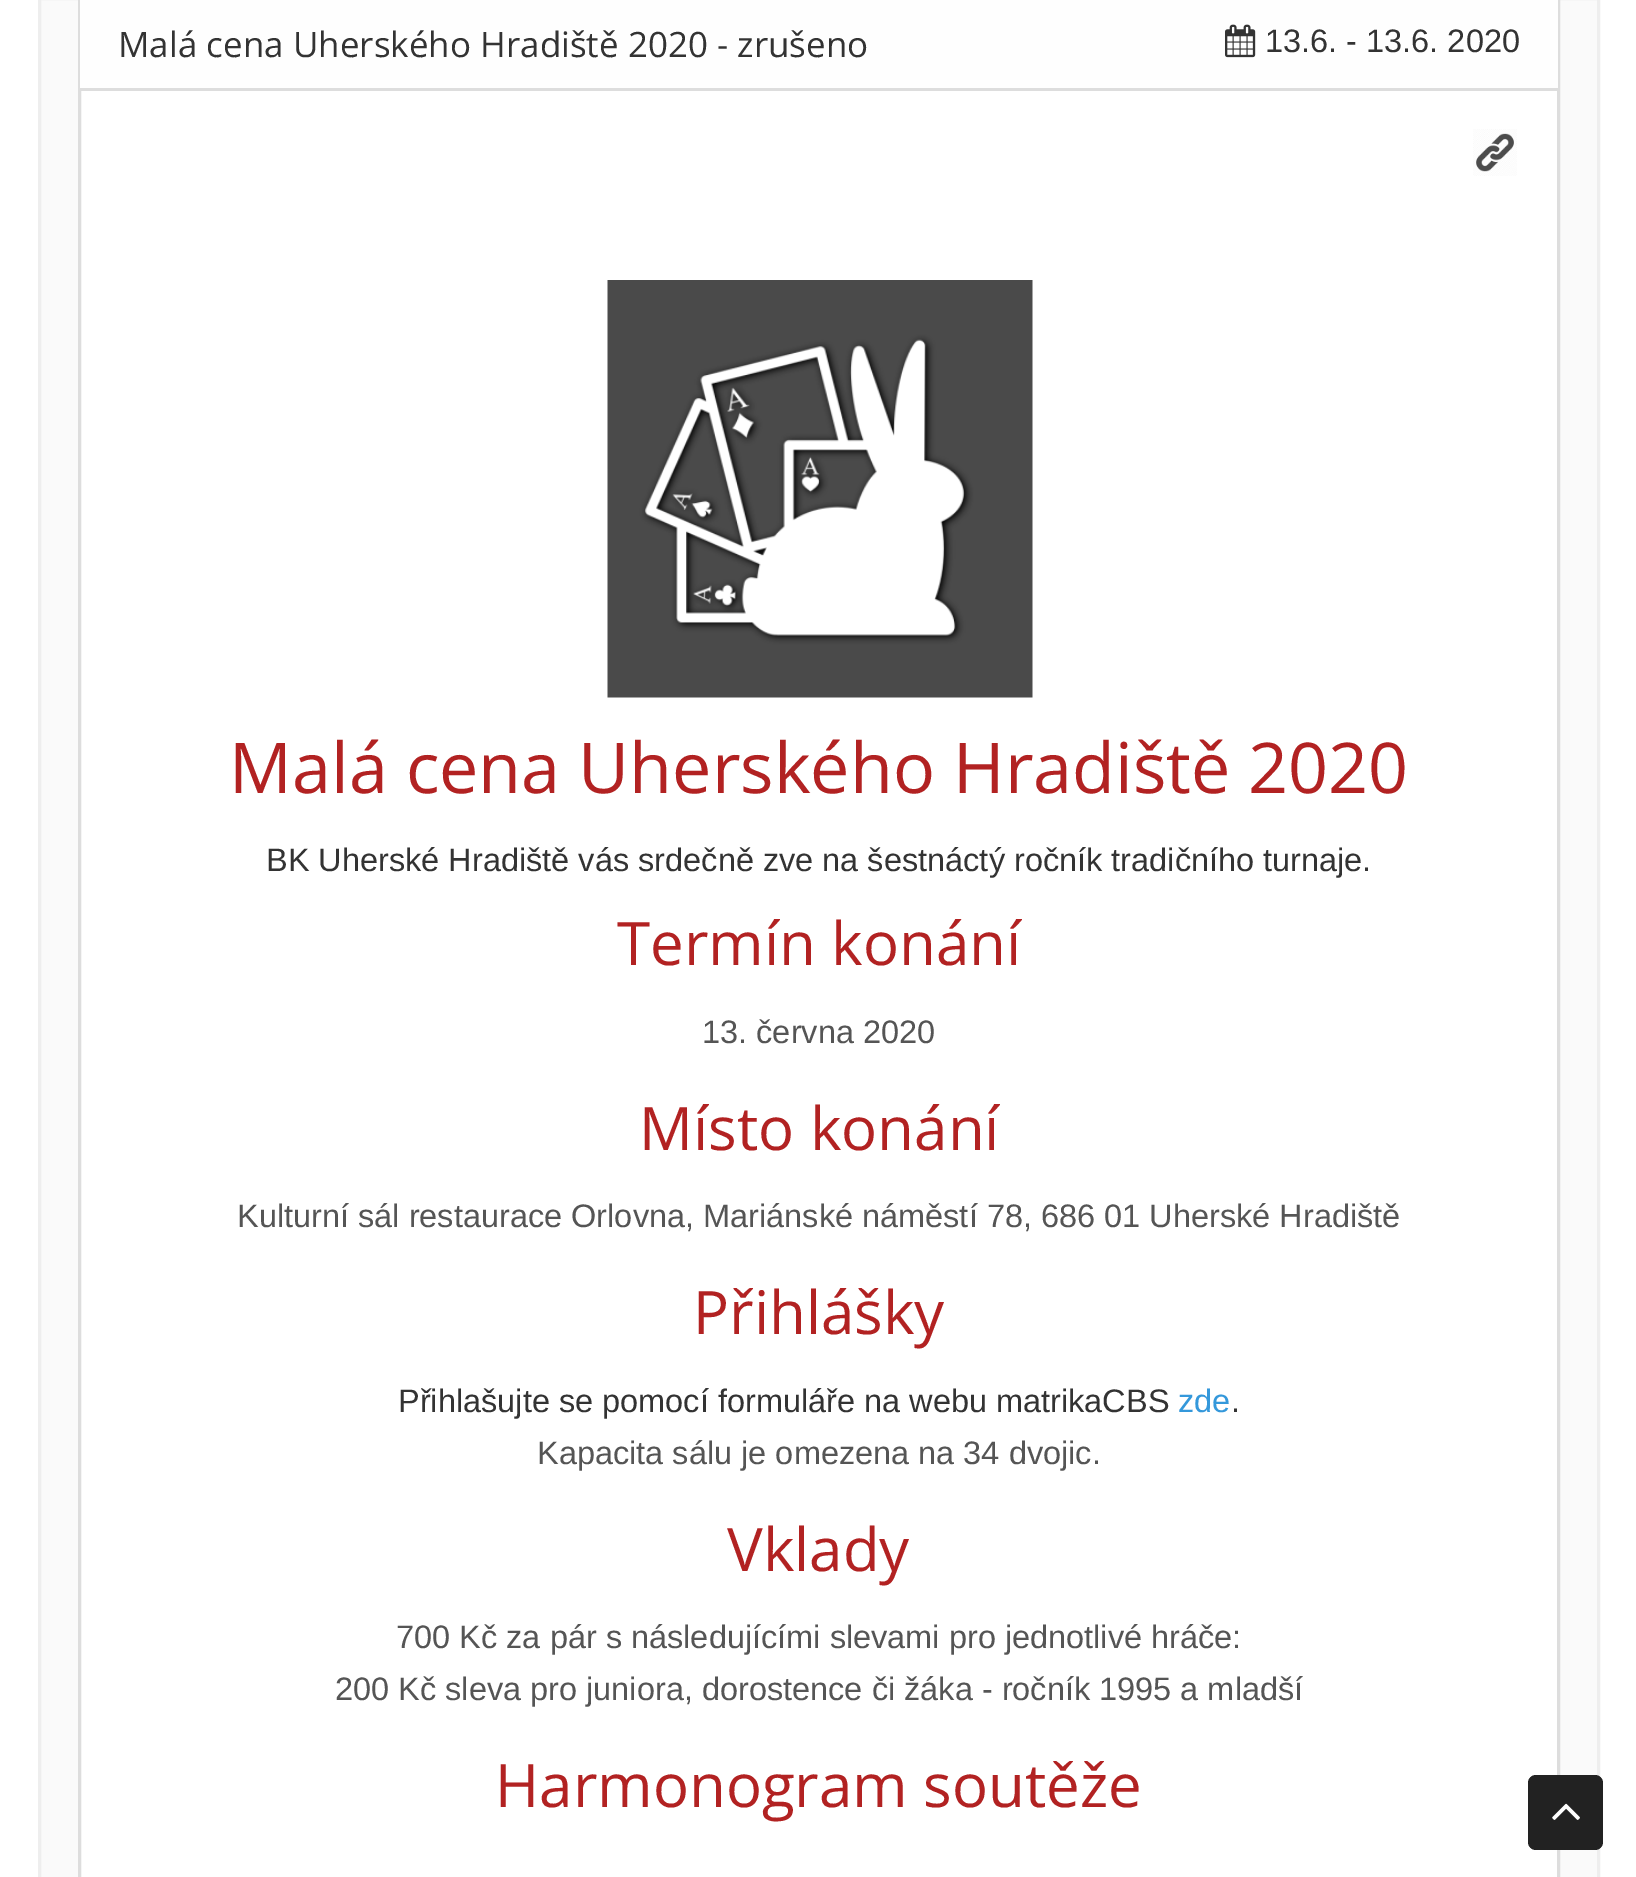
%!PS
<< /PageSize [1636 1877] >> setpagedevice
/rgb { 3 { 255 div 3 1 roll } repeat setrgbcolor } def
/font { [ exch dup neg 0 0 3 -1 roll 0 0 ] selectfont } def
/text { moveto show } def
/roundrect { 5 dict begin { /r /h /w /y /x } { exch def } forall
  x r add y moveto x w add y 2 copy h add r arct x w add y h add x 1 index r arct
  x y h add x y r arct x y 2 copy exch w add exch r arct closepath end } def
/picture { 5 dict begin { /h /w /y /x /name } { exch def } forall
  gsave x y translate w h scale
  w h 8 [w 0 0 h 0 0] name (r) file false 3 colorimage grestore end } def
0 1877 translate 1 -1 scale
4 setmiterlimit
255 255 255 rgb
0 0 1636 1877 rectfill
250 250 250 rgb
39.5 -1.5 moveto 1559 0 rlineto 0 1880 rlineto -1559 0 rlineto closepath gsave fill grestore
238 238 238 rgb
3 setlinewidth
stroke
255 255 255 rgb
81 91 1476 1786 rectfill
221 221 221 rgb
79.5 -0.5 1479 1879 rectstroke
254 254 254 rgb
80 0 1478 88 rectfill
(img_01.rgb) 1225 24 31 34 picture
221 221 221 rgb
80 88 1478 3 rectfill
(img_02.rgb) 1473 129 44 47 picture
(img_03.rgb) 607 280 426 418 picture
34 34 34 rgb
1528 1775 75 75 8 roundrect fill
(img_04.rgb) 1552 1803 28 17 picture
/OpenSans-Regular 35 font
51 51 51 rgb
(Malá cena Uherského Hradiště 2020 - zrušeno) 118 57 text
/LiberationSans-Regular 32.5 font
(13.6. - 13.6. 2020) 1265 52 text
/OpenSans-Regular 70 font
178 34 34 rgb
(Malá cena Uherského Hradiště 2020) 229 793 text
/LiberationSans-Regular 32.5 font
51 51 51 rgb
(BK Uherské Hradiště vás srdečně zve na šestnáctý ročník tradičního turnaje.) 266 871 text
/OpenSans-Regular 60 font
178 34 34 rgb
(Termín konání) 617 965 text
/LiberationSans-Regular 32.5 font
85 85 85 rgb
(13. června 2020) 702 1043 text
/OpenSans-Regular 60 font
178 34 34 rgb
(Místo konání) 639 1150 text
/LiberationSans-Regular 32.5 font
85 85 85 rgb
(Kulturní sál restaurace Orlovna, Mariánské náměstí 78, 686 01 Uherské Hradiště) 237 1227 text
/OpenSans-Regular 60 font
178 34 34 rgb
(Přihlášky) 693 1334 text
/LiberationSans-Regular 32.5 font
51 51 51 rgb
(Přihlašujte se pomocí formuláře na webu matrikaCBS) 398 1412 text
52 152 219 rgb
(zde) 1178 1412 text
51 51 51 rgb
(.) 1231 1412 text
85 85 85 rgb
(Kapacita sálu je omezena na 34 dvojic.) 537 1464 text
/OpenSans-Regular 60 font
178 34 34 rgb
(Vklady) 727 1571 text
/LiberationSans-Regular 32.5 font
85 85 85 rgb
(700 Kč za pár s následujícími slevami pro jednotlivé hráče:) 396 1648 text
(200 Kč sleva pro juniora, dorostence či žáka - ročník 1995 a mladší) 335 1700 text
/OpenSans-Regular 60 font
178 34 34 rgb
(Harmonogram soutěže) 495 1807 text
showpage
